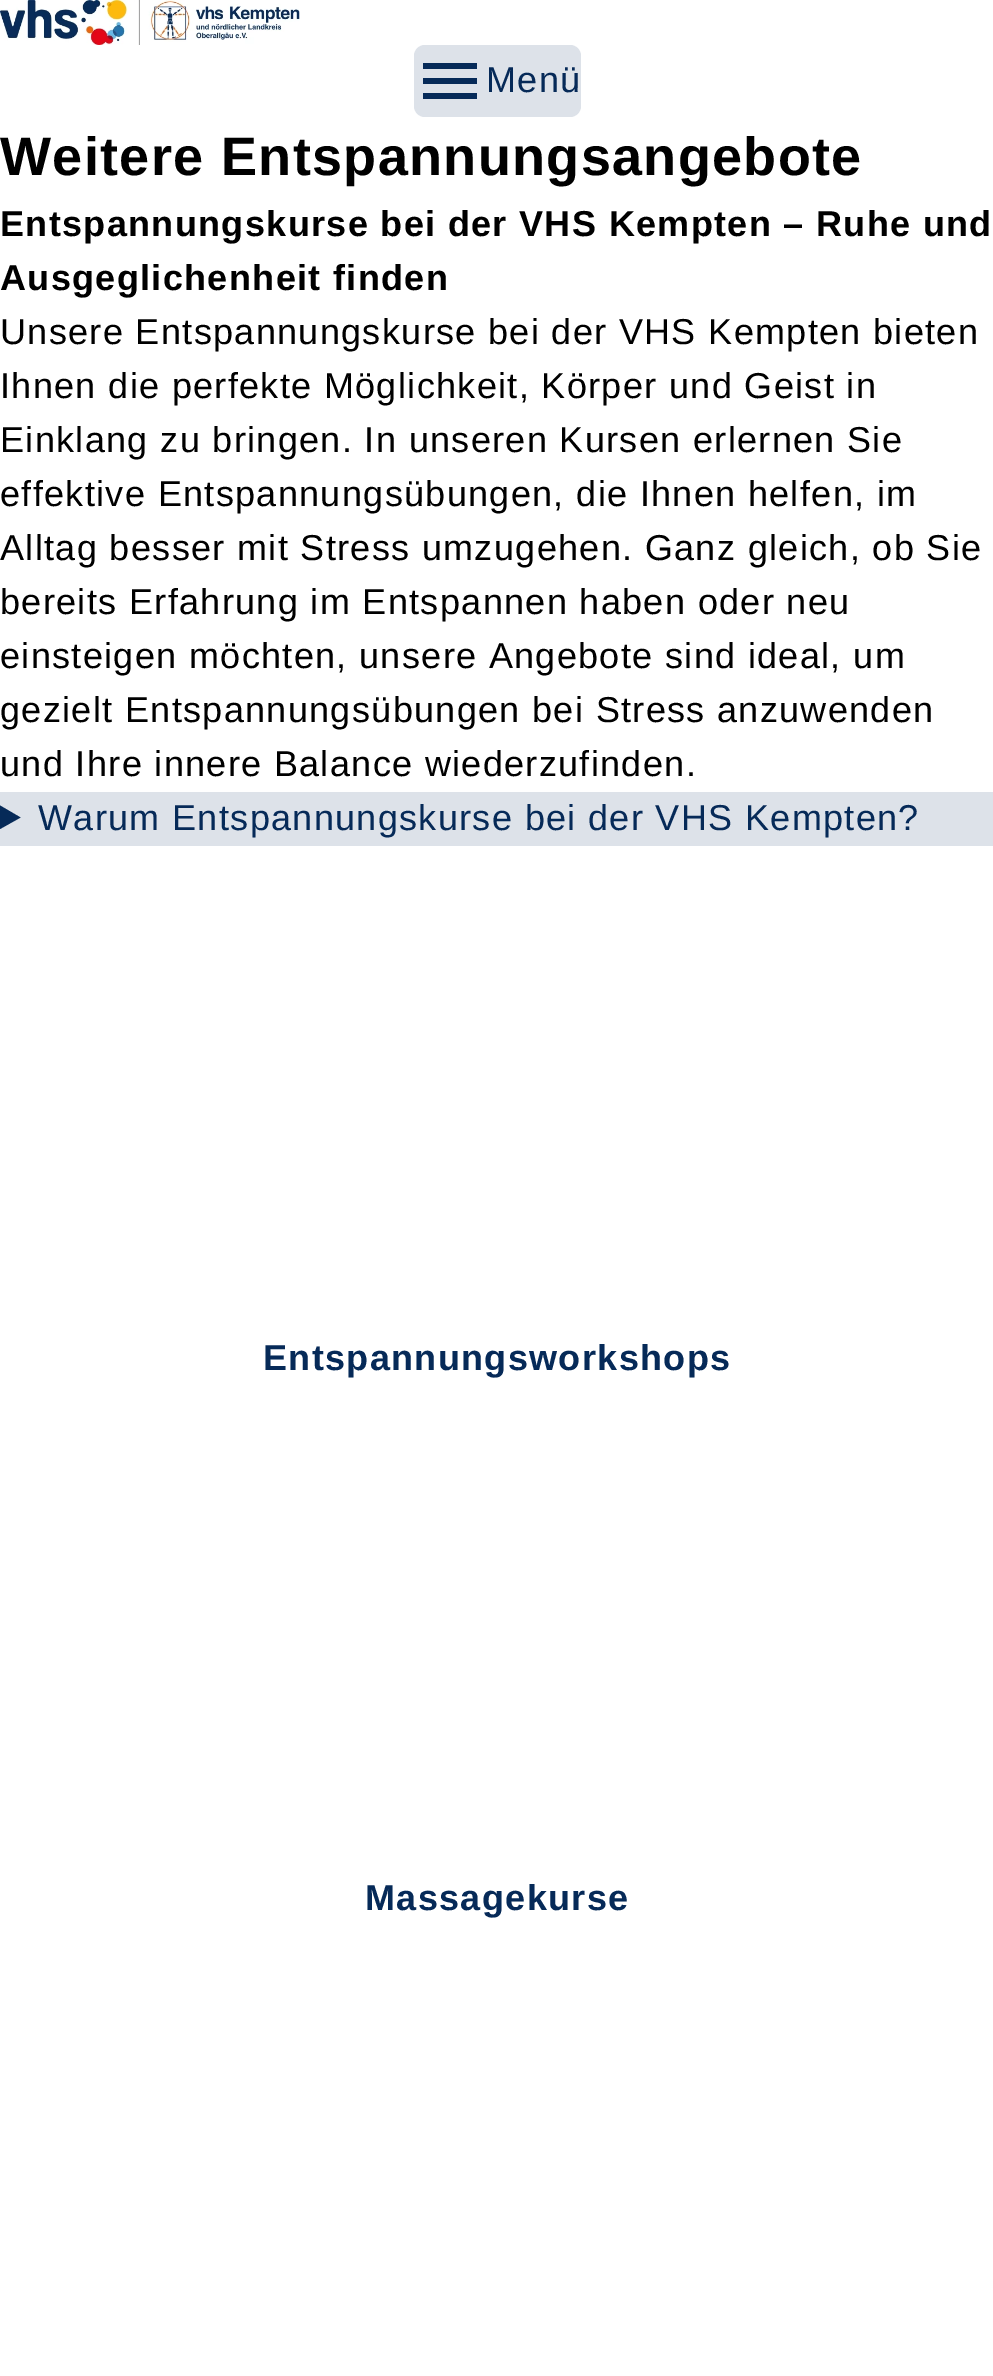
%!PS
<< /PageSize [993 2376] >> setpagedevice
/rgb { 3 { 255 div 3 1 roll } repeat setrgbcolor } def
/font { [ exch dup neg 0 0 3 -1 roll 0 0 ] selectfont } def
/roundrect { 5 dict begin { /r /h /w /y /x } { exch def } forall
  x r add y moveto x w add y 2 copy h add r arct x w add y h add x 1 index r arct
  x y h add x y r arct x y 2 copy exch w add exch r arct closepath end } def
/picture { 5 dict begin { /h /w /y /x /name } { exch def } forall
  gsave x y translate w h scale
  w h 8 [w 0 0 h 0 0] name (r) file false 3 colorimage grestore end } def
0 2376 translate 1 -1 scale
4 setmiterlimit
255 255 255 rgb
0 0 993 2376 rectfill
(img_01.rgb) 0 0 300 45 picture
221 226 233 rgb
414 45 167 72 11 roundrect fill
6 42 88 rgb
423 63 moveto 54 0 rlineto 0 6 rlineto -54 0 rlineto 0 -6 rlineto 423 78 moveto 54 0 rlineto 0 6 rlineto -54 0 rlineto 0 -6 rlineto 423 93 moveto 54 0 rlineto 0 6 rlineto -54 0 rlineto closepath fill
221 226 233 rgb
0 792 993 54 rectfill
6 42 88 rgb
0 805.5 moveto 20.5 12 rlineto -20.5 11.5 rlineto closepath fill
/LiberationSans-Regular 36 font
486 92 moveto 1.35 0 (Menü) ashow
/LiberationSans-Bold 54 font
0 0 0 rgb
0 175 moveto 1.35 0 (Weitere Entspannungsangebote) ashow
/LiberationSans-Bold 36 font
0 236 moveto 1.35 0 (Entspannungskurse bei der VHS Kempten – Ruhe und) ashow
0 290 moveto 1.35 0 (Ausgeglichenheit finden) ashow
/LiberationSans-Regular 36 font
0 344 moveto 1.35 0 (Unsere Entspannungskurse bei der VHS Kempten bieten) ashow
0 398 moveto 1.35 0 (Ihnen die perfekte Möglichkeit, Körper und Geist in) ashow
0 452 moveto 1.35 0 (Einklang zu bringen. In unseren Kursen erlernen Sie) ashow
0 506 moveto 1.35 0 (effektive Entspannungsübungen, die Ihnen helfen, im) ashow
0 560 moveto 1.35 0 (Alltag besser mit Stress umzugehen. Ganz gleich, ob Sie) ashow
0 614 moveto 1.35 0 (bereits Erfahrung im Entspannen haben oder neu) ashow
0 668 moveto 1.35 0 (einsteigen möchten, unsere Angebote sind ideal, um) ashow
0 722 moveto 1.35 0 (gezielt Entspannungsübungen bei Stress anzuwenden) ashow
0 776 moveto 1.35 0 (und Ihre innere Balance wiederzufinden.) ashow
6 42 88 rgb
38 830 moveto 1.35 0 (Warum Entspannungskurse bei der VHS Kempten?) ashow
/LiberationSans-Bold 36 font
263 1370 moveto 1.35 0 (Entspannungsworkshops) ashow
365 1910 moveto 1.35 0 (Massagekurse) ashow
showpage
